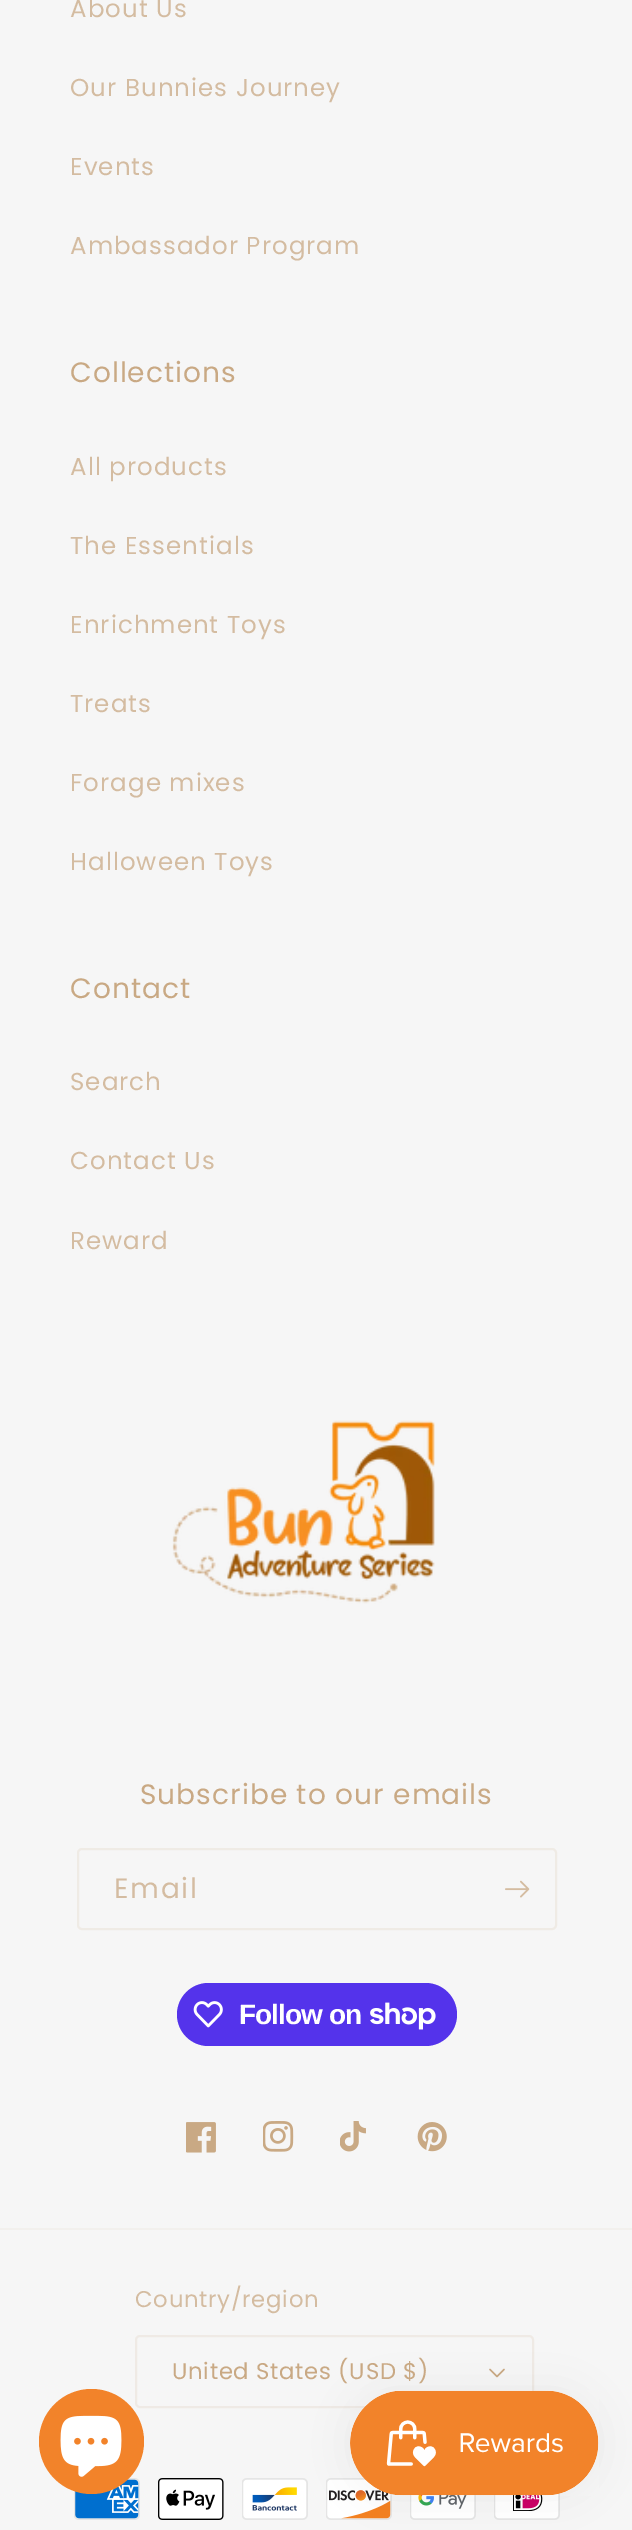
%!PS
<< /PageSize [632 2530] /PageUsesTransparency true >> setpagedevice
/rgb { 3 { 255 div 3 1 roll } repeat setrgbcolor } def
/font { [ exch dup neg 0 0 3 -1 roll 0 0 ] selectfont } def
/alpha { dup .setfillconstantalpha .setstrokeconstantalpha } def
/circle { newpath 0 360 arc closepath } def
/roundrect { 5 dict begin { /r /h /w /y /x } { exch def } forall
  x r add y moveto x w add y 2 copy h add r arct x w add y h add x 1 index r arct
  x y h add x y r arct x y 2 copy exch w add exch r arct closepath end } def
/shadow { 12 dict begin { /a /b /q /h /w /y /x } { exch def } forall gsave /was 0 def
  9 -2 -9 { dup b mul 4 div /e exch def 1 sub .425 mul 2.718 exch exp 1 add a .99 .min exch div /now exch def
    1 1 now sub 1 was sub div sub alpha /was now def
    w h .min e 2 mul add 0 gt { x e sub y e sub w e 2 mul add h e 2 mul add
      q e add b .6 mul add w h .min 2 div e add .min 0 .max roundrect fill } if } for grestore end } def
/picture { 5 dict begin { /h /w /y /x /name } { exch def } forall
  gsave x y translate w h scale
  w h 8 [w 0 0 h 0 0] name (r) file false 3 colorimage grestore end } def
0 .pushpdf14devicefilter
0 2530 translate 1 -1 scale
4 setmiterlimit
246 246 246 rgb
0 0 632 2530 rectfill
(img_01.rgb) 172 1420 263 184 picture
0.15 alpha
201 169 132 rgb
2 setlinewidth
78 1849 478 80 4 roundrect stroke
1 alpha
(img_02.rgb) 505 1880 25 18 picture
84 51 235 rgb
177 1983 280 63 31.5 roundrect fill
(img_03.rgb) 193 2001 30 27 picture
(img_04.rgb) 370 2002 66 28 picture
(img_05.rgb) 186 2122 30 31 picture
(img_06.rgb) 263 2121 31 31 picture
(img_07.rgb) 340 2121 26 31 picture
(img_08.rgb) 417 2122 30 30 picture
242 240 237 rgb
0 2228 632 2 rectfill
(img_09.rgb) 489 2368 16 10 picture
239 234 229 rgb
136 2336 397 71 4 roundrect stroke
(img_10.rgb) 74 2478 66 42 picture
(img_11.rgb) 158 2478 66 42 picture
(img_12.rgb) 242 2478 66 42 picture
(img_13.rgb) 326 2478 66 42 picture
(img_14.rgb) 410 2495 66 25 picture
(img_15.rgb) 494 2493 66 27 picture
242 131 42 rgb
91.5 2441.5 52.5 circle fill
(img_16.rgb) 60 2415 62 62 picture
0 0 0 rgb
350 2391 249 105 52.5 22 0.05 shadow
(img_17.rgb) 350 2390 249 106 picture
/Poppins-Regular 24.5 font
212 188 161 rgb
70 17 moveto 1.05 0 (About Us) ashow
70 96 moveto 1.05 0 (Our Bunnies Journey) ashow
70 175 moveto 1.05 0 (Events) ashow
70 254 moveto 1.05 0 (Ambassador Program) ashow
/Poppins-Regular 28 font
201 169 132 rgb
70 382 moveto 1.05 0 (Collections) ashow
/Poppins-Regular 24.5 font
212 188 161 rgb
70 475 moveto 1.05 0 (All products) ashow
70 554 moveto 1.05 0 (The Essentials) ashow
70 633 moveto 1.05 0 (Enrichment Toys) ashow
70 712 moveto 1.05 0 (Treats) ashow
70 791 moveto 1.05 0 (Forage mixes) ashow
70 870 moveto 1.05 0 (Halloween Toys) ashow
/Poppins-Regular 28 font
201 169 132 rgb
70 998 moveto 1.05 0 (Contact) ashow
/Poppins-Regular 24.5 font
212 188 161 rgb
70 1090 moveto 1.05 0 (Search) ashow
70 1169 moveto 1.05 0 (Contact Us) ashow
70 1249 moveto 1.05 0 (Reward) ashow
/Poppins-Regular 28 font
201 169 132 rgb
140 1804 moveto 1.05 0 (Subscribe to our emails) ashow
212 188 161 rgb
114 1898 moveto 1.75 0 (Email) ashow
/LiberationSans-Bold 28 font
255 255 255 rgb
239 2024 moveto -0.9 0 (Follow on) ashow
/Poppins-Regular 22.75 font
212 188 161 rgb
135 2307 moveto 0.7 0 (Country/region) ashow
201 169 132 rgb
172 2379 moveto 0.7 0 (United States \(USD $\)) ashow
.poppdf14devicefilter showpage
